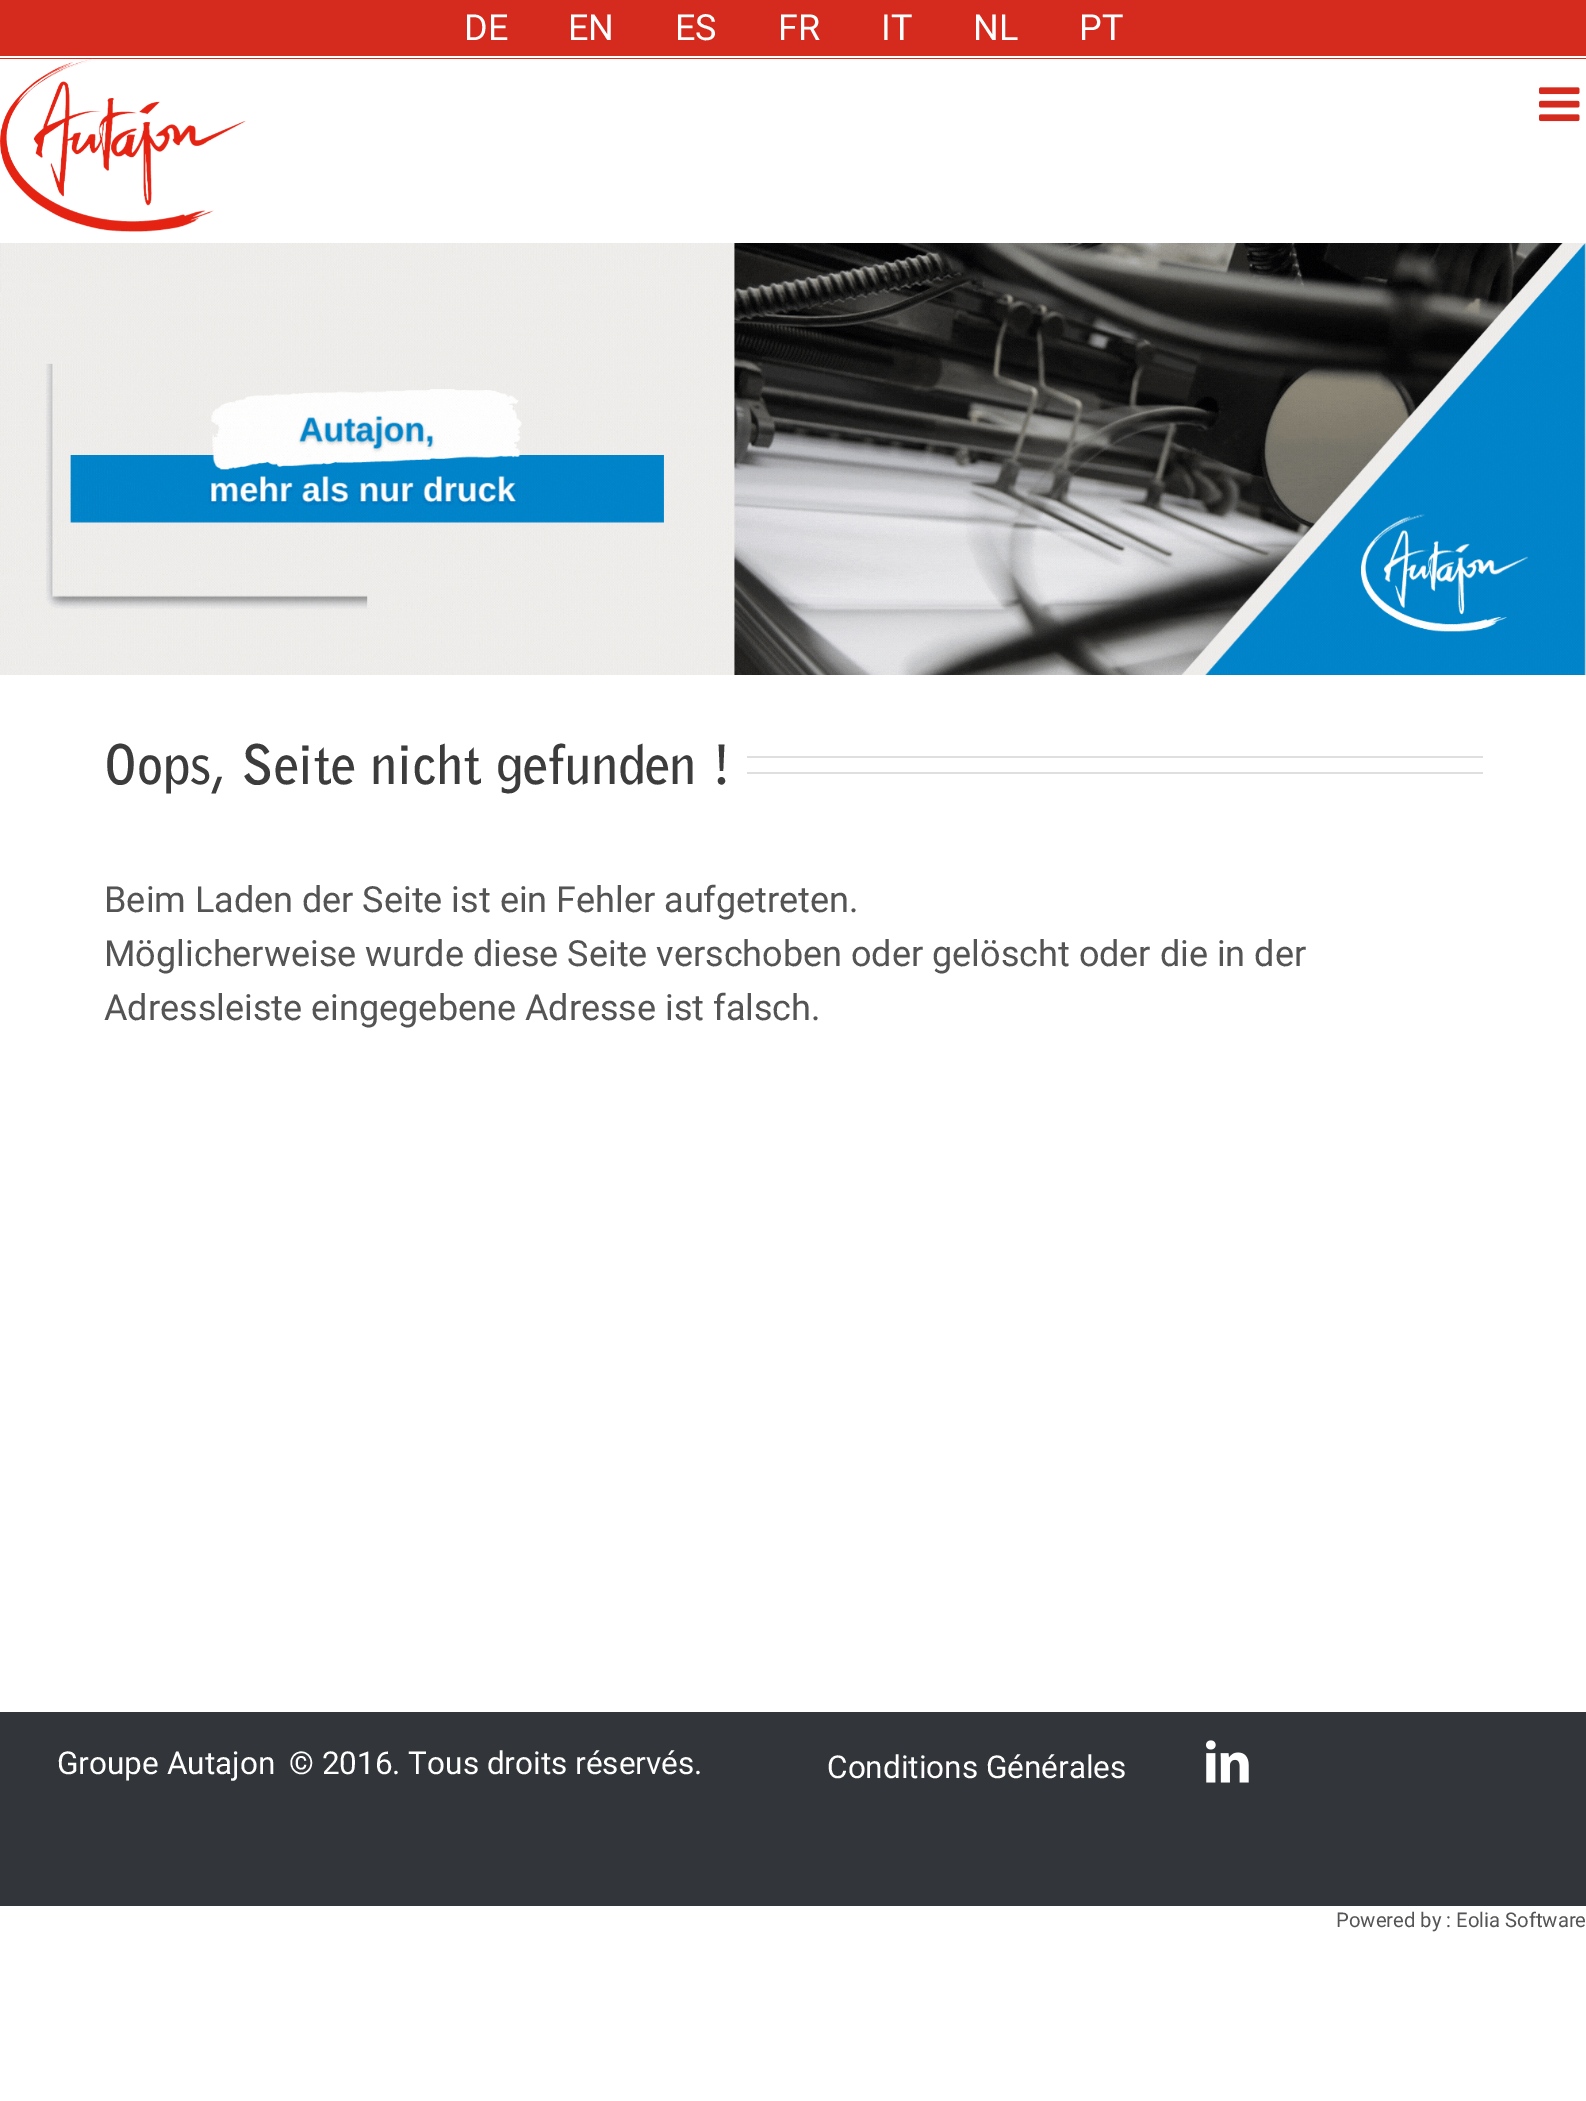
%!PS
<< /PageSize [1586 2101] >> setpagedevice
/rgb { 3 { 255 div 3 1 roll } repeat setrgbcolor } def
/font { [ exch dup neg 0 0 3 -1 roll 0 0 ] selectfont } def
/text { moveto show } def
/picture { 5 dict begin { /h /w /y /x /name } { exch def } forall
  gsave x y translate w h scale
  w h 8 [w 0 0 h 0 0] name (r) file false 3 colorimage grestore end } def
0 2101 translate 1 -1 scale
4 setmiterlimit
255 255 255 rgb
0 0 1586 2101 rectfill
213 43 30 rgb
0 0 1586 59 rectfill
255 255 255 rgb
0 56 1586 2 rectfill
(img_01.rgb) 0 58 246 174 picture
(img_02.rgb) 1539 87 41 35 picture
(img_03.rgb) 0 243 1586 432 picture
224 222 222 rgb
747 756 736 2 rectfill
747 772 736 2 rectfill
50 54 58 rgb
0 1712 1586 194 rectfill
(img_04.rgb) 1206 1740 43 43 picture
/Roboto-Regular 36 font
255 255 255 rgb
(DE) 464 40 text
(EN) 568 40 text
(ES) 675 40 text
(FR) 778 40 text
(IT) 881 40 text
(NL) 973 40 text
(PT) 1079 40 text
/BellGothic-Bold 54 font
60 60 60 rgb
(Oops, Seite nicht gefunden !) 104 784 text
/Roboto-Regular 36 font
84 84 84 rgb
(Beim Laden der Seite ist ein Fehler aufgetreten.) 104 912 text
(Möglicherweise wurde diese Seite verschoben oder gelöscht oder die in der) 104 966 text
(Adressleiste eingegebene Adresse ist falsch.) 104 1020 text
/Roboto-Regular 31.5 font
255 255 255 rgb
(Groupe Autajon) 57 1774 text
(© 2016. Tous droits réservés.) 289 1774 text
(Conditions Générales) 827 1778 text
/Roboto-Regular 20.25 font
84 84 84 rgb
(Powered by : Eolia Software) 1336 1927 text
showpage
